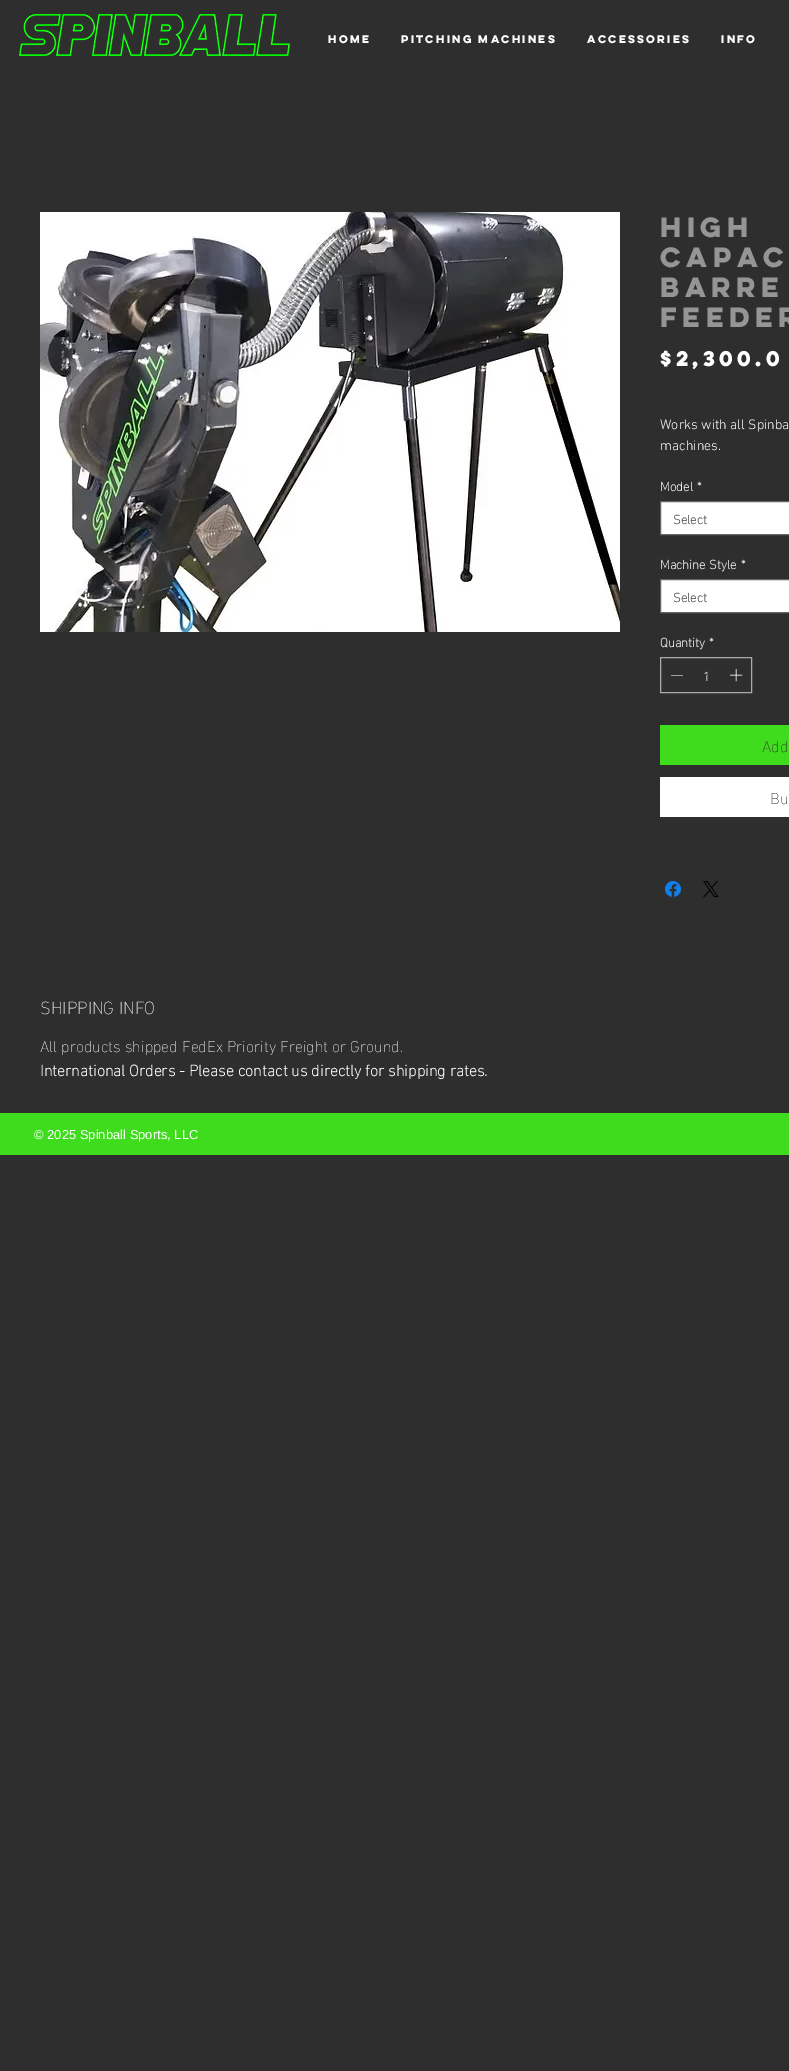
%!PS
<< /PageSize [789 2071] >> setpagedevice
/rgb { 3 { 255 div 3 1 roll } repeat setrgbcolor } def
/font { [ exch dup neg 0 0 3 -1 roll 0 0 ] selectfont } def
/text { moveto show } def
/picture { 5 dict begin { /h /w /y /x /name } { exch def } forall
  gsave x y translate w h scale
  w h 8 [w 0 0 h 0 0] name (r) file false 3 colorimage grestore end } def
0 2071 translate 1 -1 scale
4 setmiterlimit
45 46 45 rgb
0 0 789 2071 rectfill
(img_01.rgb) 19 14 271 42 picture
(img_02.rgb) 40 212 580 420 picture
255 255 255 rgb
660.5 501.5 moveto 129 0 rlineto 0 33 rlineto -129 0 rlineto closepath gsave fill grestore
102 102 102 rgb
stroke
255 255 255 rgb
660.5 579.5 moveto 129 0 rlineto 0 33 rlineto -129 0 rlineto closepath gsave fill grestore
102 102 102 rgb
stroke
171 171 171 rgb
660.5 657.5 91 35 rectstroke
255 255 255 rgb
683 675 moveto 0 0.5 rlineto -12 0 rlineto 0 -0.5 rlineto closepath eofill
(img_03.rgb) 730 669 13 13 picture
63 220 30 rgb
660 725 129 40 rectfill
255 255 255 rgb
660 777 129 40 rectfill
(img_04.rgb) 665 881 16 16 picture
(img_05.rgb) 703 881 16 16 picture
63 220 30 rgb
0 1113 789 42 rectfill
/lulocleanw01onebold-Bold 10 font
255 255 255 rgb
(HOME) 328 43 text
(PITCHING MACHINES) 401 43 text
(ACCESSORIES) 587 43 text
(INFO) 721 43 text
/lulocleanw01onebold-Bold 25 font
149 149 149 rgb
(High) 660 237 text
(Capac) 660 267 text
(Barre) 660 297 text
(Feeder) 660 327 text
/lulocleanw01onebold-Bold 19 font
255 255 255 rgb
($2,300.0) 660 366 text
/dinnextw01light-Light 14 font
(Works with all Spinba) 660 429 text
(machines.) 660 450 text
/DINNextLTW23-Bold 13 font
(Model) 660 491 text
(*) 697 491 text
68 68 68 rgb
(Select) 673 524 text
255 255 255 rgb
(Machine Style) 660 569 text
(*) 741 569 text
68 68 68 rgb
(Select) 673 602 text
255 255 255 rgb
(Quantity) 660 647 text
(*) 709 647 text
(1) 703 681 text
/DINNextLTW23-ExtraLight 16 font
45 46 45 rgb
(Add) 762 752 text
(Bu) 770 804 text
/DINNextLTW23-ExtraLight 18 font
255 255 255 rgb
(SHIPPING INFO) 40 1014 text
/DINNextLTW23-ExtraLight 16 font
(All products shipped FedEx Priority Freight or Ground.) 40 1052 text
/DINNextLTW23-Bold 16 font
(International Orders - Please contact us directly for shipping rates.) 40 1076 text
/LiberationSans-Regular 13 font
(© 2025 Spinball Sports, LLC) 34 1139 text
showpage
